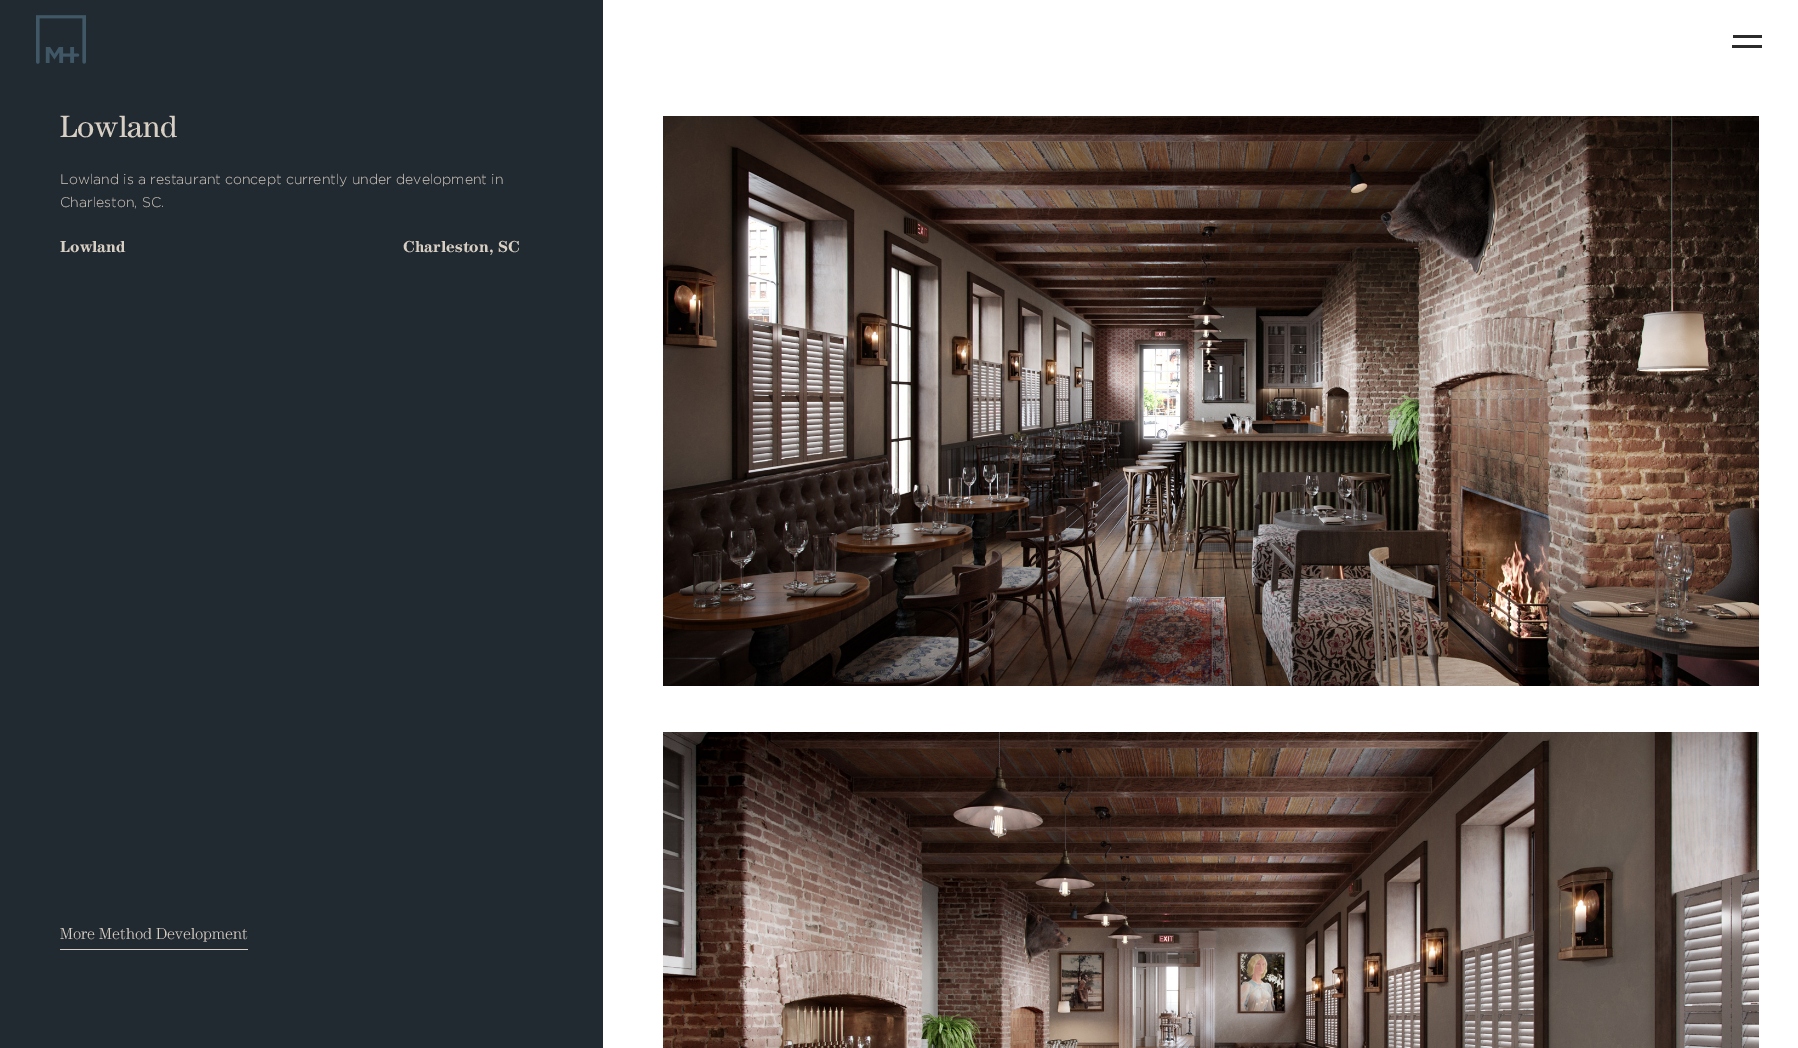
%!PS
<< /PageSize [1798 1048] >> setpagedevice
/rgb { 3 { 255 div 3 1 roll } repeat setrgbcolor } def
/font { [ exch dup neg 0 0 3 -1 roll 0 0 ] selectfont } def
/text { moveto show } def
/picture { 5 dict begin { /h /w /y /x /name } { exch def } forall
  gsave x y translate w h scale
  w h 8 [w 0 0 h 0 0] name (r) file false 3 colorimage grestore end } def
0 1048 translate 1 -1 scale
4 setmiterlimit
255 255 255 rgb
0 0 1798 1048 rectfill
33 41 49 rgb
0 0 603 1048 rectfill
(img_01.rgb) 36 15 50 49 picture
43 43 43 rgb
1733 35 29 3 rectfill
1732 45 30 3 rectfill
216 207 196 rgb
60 949 188 1 rectfill
(img_02.rgb) 663 116 1096 570 picture
(img_03.rgb) 663 732 1096 316 picture
/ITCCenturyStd-Regular 31 font
(Lowland) 60 137 text
/Gotham-Light 14 font
(Lowland is a restaurant concept currently under development in) 60 184 text
(Charleston, SC.) 60 207 text
/ITCCenturyStd-Bold 16 font
(Lowland) 60 252 text
(Charleston, SC) 403 252 text
/ITCCenturyStd-Light 16 font
(More Method Development) 60 939 text
showpage
